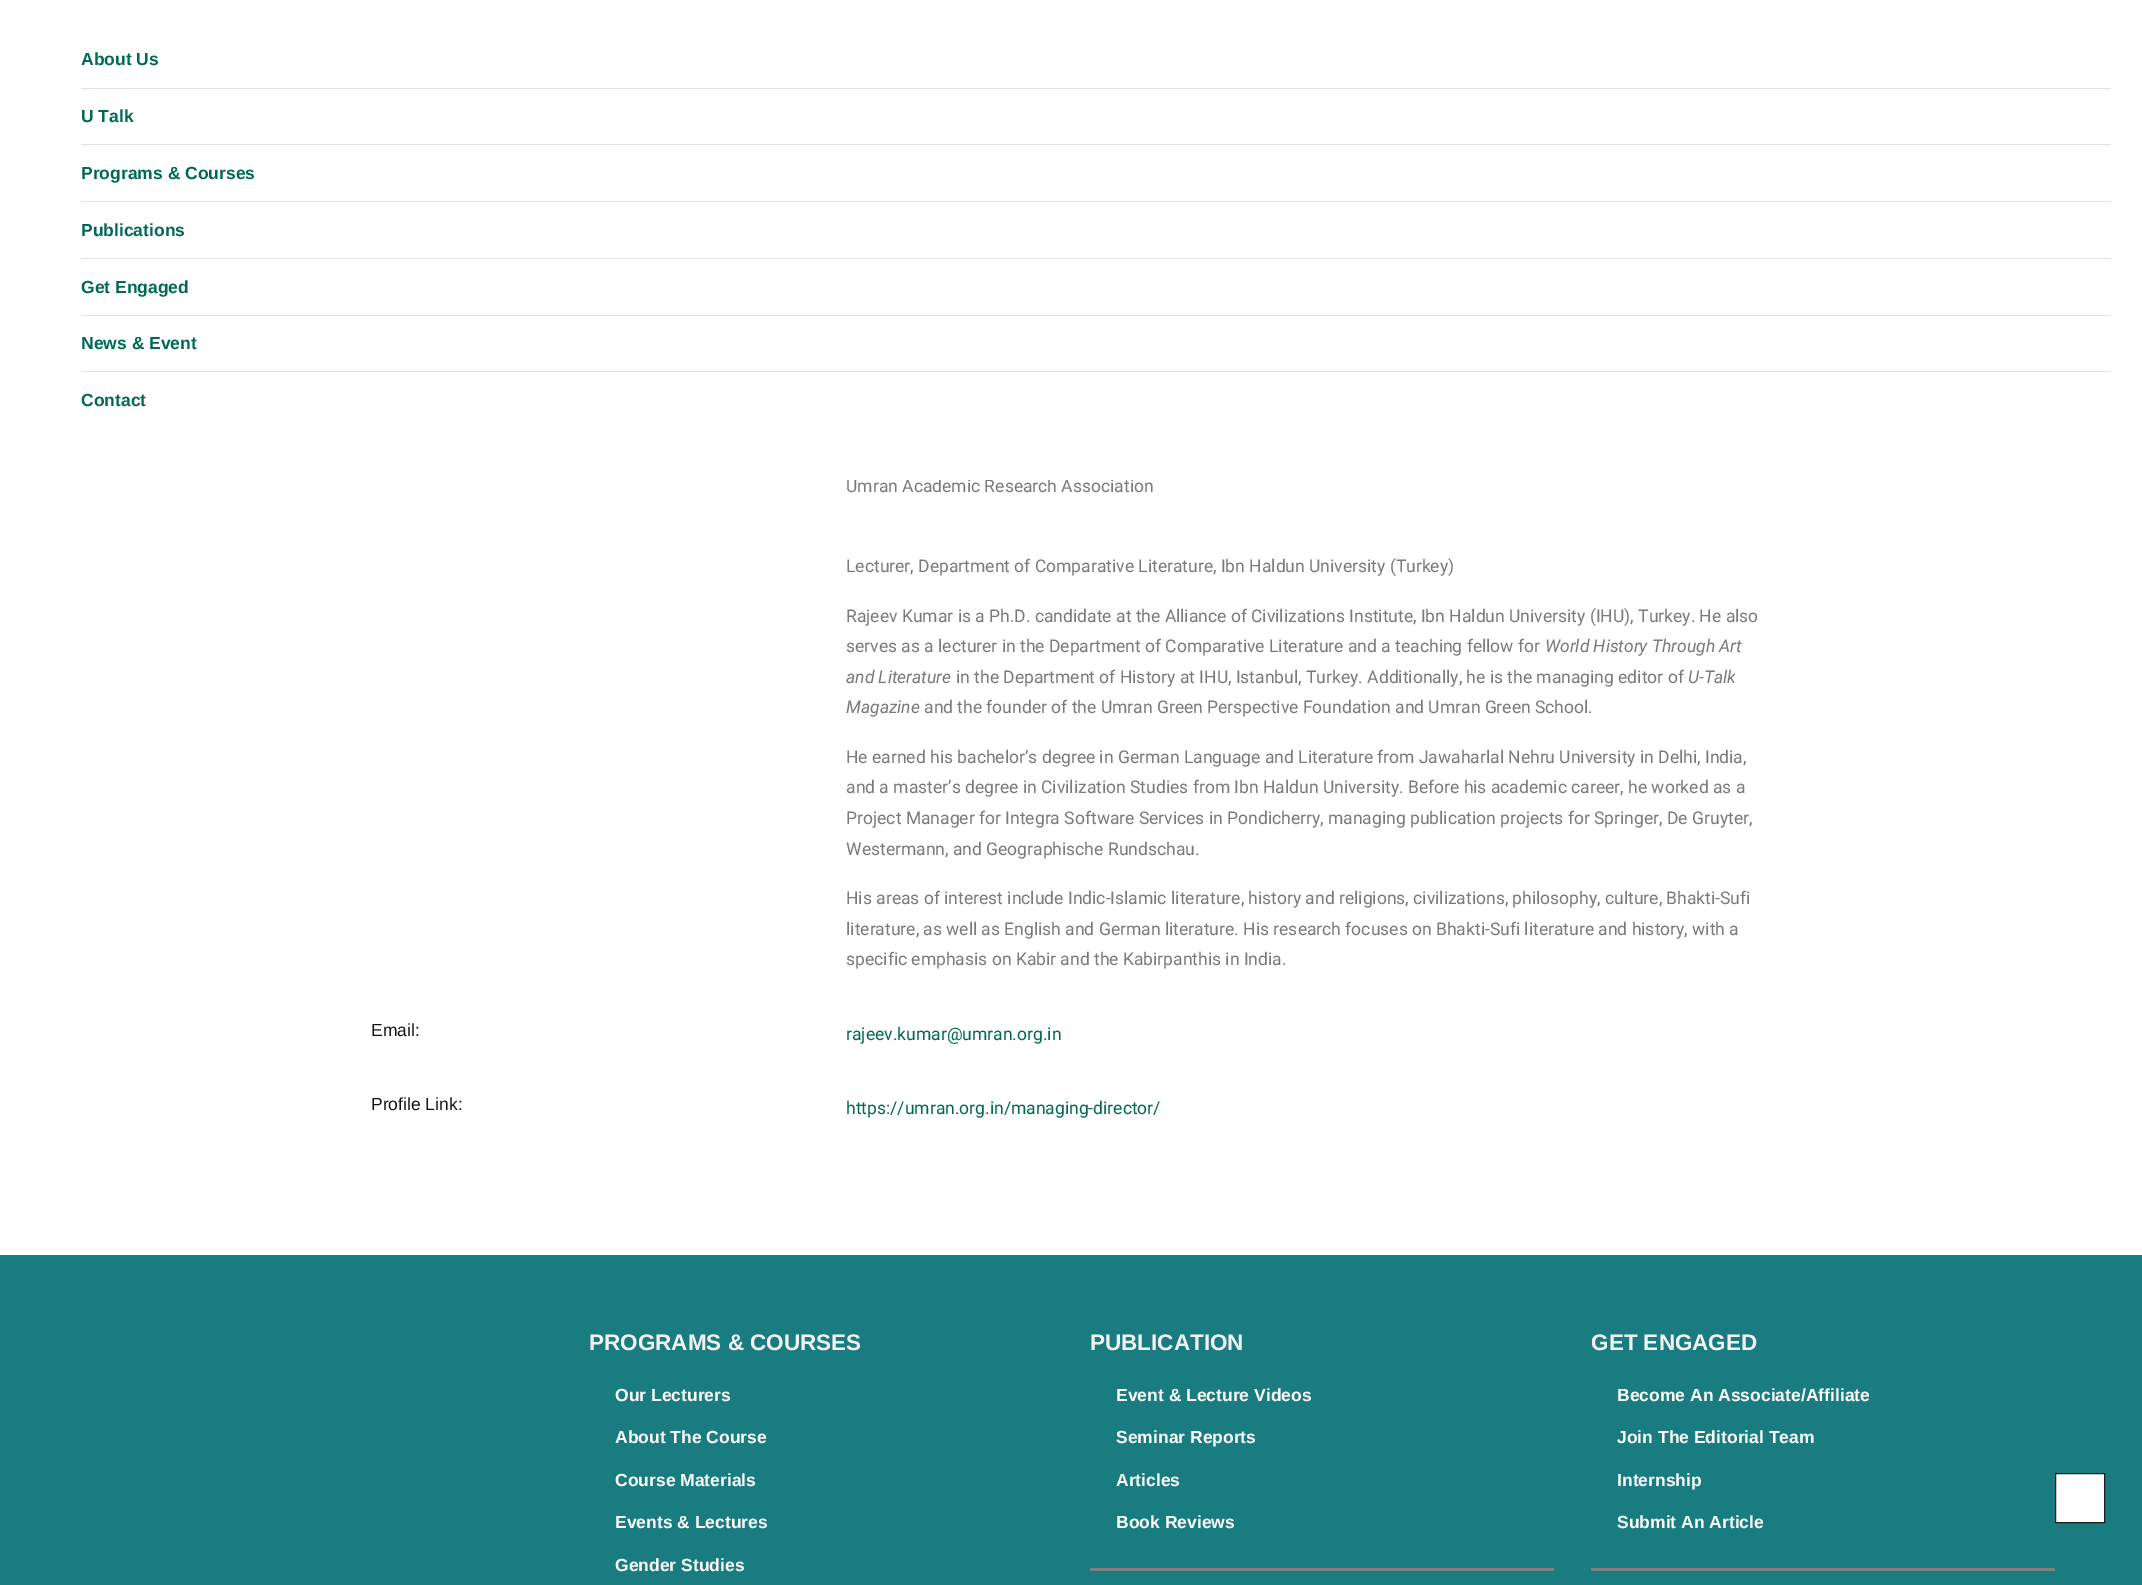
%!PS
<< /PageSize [2142 1585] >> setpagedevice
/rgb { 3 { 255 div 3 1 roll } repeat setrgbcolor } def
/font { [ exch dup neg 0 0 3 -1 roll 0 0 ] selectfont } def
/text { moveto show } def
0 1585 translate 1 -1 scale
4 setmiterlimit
255 255 255 rgb
0 0 2142 1585 rectfill
226 226 226 rgb
81 88 2030 1 rectfill
81 144 2030 1 rectfill
81 201 2030 1 rectfill
81 258 2030 1 rectfill
81 315 2030 1 rectfill
81 371 2030 1 rectfill
25 124 129 rgb
0 1255 2142 330 rectfill
128 128 128 rgb
1090 1568 464 3 rectfill
1591 1568 464 3 rectfill
255 255 255 rgb
2055.5 1473.5 moveto 49 0 rlineto 0 49 rlineto -49 0 rlineto closepath gsave fill grestore
28 28 28 rgb
stroke
/LiberationSans-Bold 17.5 font
0 105 84 rgb
(About Us) 81 65 text
(U Talk) 81 122 text
(Programs & Courses) 81 179 text
(Publications) 81 236 text
(Get Engaged) 81 293 text
(News & Event) 81 349 text
(Contact) 81 406 text
/Roboto-Regular 17.5 font
122 122 122 rgb
(Umran Academic Research Association) 846 492 text
255 255 255 rgb
847 478 286 2 rectfill
122 122 122 rgb
(Lecturer, Department of Comparative Literature, Ibn Haldun University \(Turkey\)) 846 572 text
(Rajeev Kumar is a Ph.D. candidate at the Alliance of Civilizations Institute, Ibn Haldun University \(IHU\), Turkey. He also) 846 622 text
(serves as a lecturer in the Department of Comparative Literature and a teaching fellow for) 846 652 text
/Roboto-Italic 17.5 font
(World History Through Art) 1545 652 text
(and Literature) 846 683 text
/Roboto-Regular 17.5 font
(in the Department of History at IHU, Istanbul, Turkey. Additionally, he is the managing editor of) 956 683 text
/Roboto-Italic 17.5 font
(U-Talk) 1688 683 text
(Magazine) 846 713 text
/Roboto-Regular 17.5 font
(and the founder of the Umran Green Perspective Foundation and Umran Green School.) 924 713 text
(He earned his bachelor’s degree in German Language and Literature from Jawaharlal Nehru University in Delhi, India,) 846 763 text
(and a master’s degree in Civilization Studies from Ibn Haldun University. Before his academic career, he worked as a) 846 793 text
(Project Manager for Integra Software Services in Pondicherry, managing publication projects for Springer, De Gruyter,) 846 824 text
(Westermann, and Geographische Rundschau.) 846 855 text
(His areas of interest include Indic-Islamic literature, history and religions, civilizations, philosophy, culture, Bhakti-Sufi) 846 904 text
(literature, as well as English and German literature. His research focuses on Bhakti-Sufi literature and history, with a) 846 935 text
(specific emphasis on Kabir and the Kabirpanthis in India.) 846 965 text
/LiberationSans-Regular 17.5 font
18 18 18 rgb
(Email:) 371 1036 text
/Roboto-Regular 17.5 font
0 105 84 rgb
(rajeev.kumar@umran.org.in) 846 1040 text
/LiberationSans-Regular 17.5 font
18 18 18 rgb
(Profile Link:) 371 1110 text
/Roboto-Regular 17.5 font
0 105 84 rgb
(https://umran.org.in/managing-director/) 846 1114 text
/LiberationSans-Bold 22.5 font
242 242 242 rgb
(PROGRAMS & COURSES) 589 1350 text
/LiberationSans-Bold 17.5 font
255 255 255 rgb
(Our Lecturers) 615 1401 text
(About The Course) 615 1443 text
(Course Materials) 615 1486 text
(Events & Lectures) 615 1528 text
(Gender Studies) 615 1571 text
/LiberationSans-Bold 22.5 font
242 242 242 rgb
(PUBLICATION) 1090 1350 text
/LiberationSans-Bold 17.5 font
255 255 255 rgb
(Event & Lecture Videos) 1116 1401 text
(Seminar Reports) 1116 1443 text
(Articles) 1116 1486 text
(Book Reviews) 1116 1528 text
/LiberationSans-Bold 22.5 font
242 242 242 rgb
(GET ENGAGED) 1591 1350 text
/LiberationSans-Bold 17.5 font
255 255 255 rgb
(Become An Associate/Affiliate) 1617 1401 text
(Join The Editorial Team) 1617 1443 text
(Internship) 1617 1486 text
(Submit An Article) 1617 1528 text
showpage
